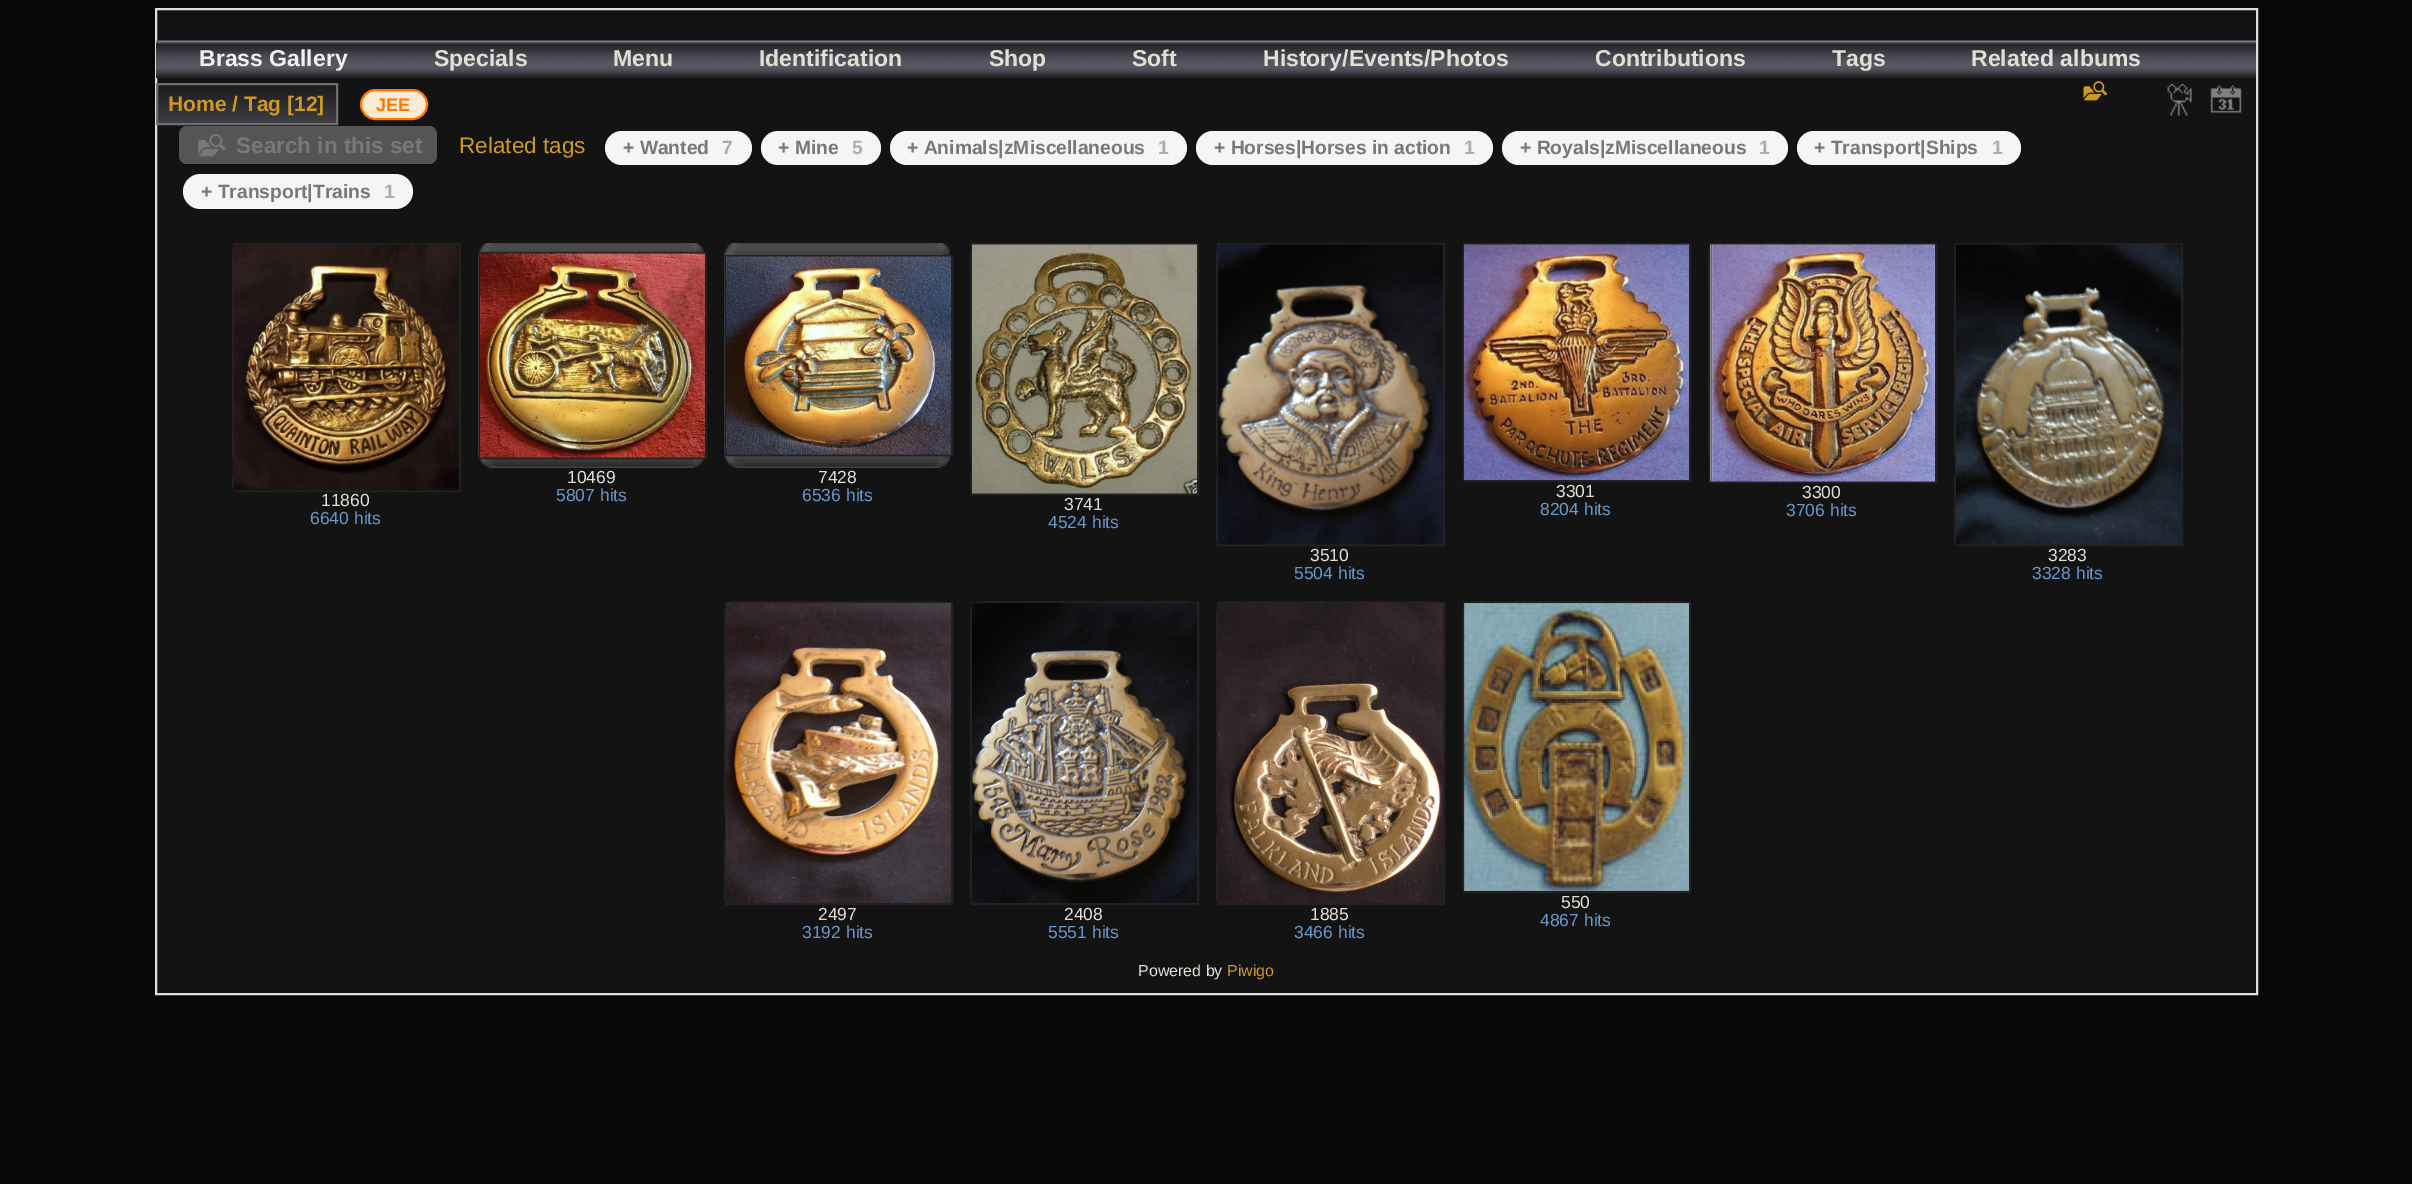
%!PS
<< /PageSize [2412 1184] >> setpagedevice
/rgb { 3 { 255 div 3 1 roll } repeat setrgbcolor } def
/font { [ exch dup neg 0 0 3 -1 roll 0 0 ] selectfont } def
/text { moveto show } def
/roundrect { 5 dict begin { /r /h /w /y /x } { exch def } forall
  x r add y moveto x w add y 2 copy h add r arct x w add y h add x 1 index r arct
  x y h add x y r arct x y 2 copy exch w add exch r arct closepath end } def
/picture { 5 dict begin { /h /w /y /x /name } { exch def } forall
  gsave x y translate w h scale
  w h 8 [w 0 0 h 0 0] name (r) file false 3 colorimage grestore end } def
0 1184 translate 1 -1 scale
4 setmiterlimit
8 8 8 rgb
0 0 2412 1184 rectfill
19 19 19 rgb
156 9 moveto 2101 0 rlineto 0 985 rlineto -2101 0 rlineto closepath gsave fill grestore
226 223 212 rgb
2 setlinewidth
stroke
(img_01.rgb) 156 40 2100 38 picture
(img_02.rgb) 158 85 178 38 picture
109 109 109 rgb
157 84 180 40 rectstroke
252 234 210 rgb
361 90 66 29 14.5 roundrect gsave fill grestore
255 119 0 rgb
stroke
(img_03.rgb) 2083 81 24 20 picture
(img_04.rgb) 2167 83 25 33 picture
(img_05.rgb) 2210 85 32 28 picture
16 16 16 rgb
179 159 moveto 0 4 4 8 8 8 rcurveto 242 0 rlineto 4 0 8 -4 8 -8 rcurveto 0 -22 rlineto -1 -3 rlineto 0 22 rlineto 0 4 -3 8 -7 8 rcurveto -243 0 rlineto -3 0 -6 -2 -7 -5 rcurveto closepath fill
85 85 85 rgb
179 126 258 38 8 roundrect fill
(img_06.rgb) 198 134 28 23 picture
245 245 245 rgb
605 131 147 34 17 roundrect fill
761 131 120 34 17 roundrect fill
890 131 297 34 17 roundrect fill
1196 131 297 34 17 roundrect fill
1502 131 286 34 17 roundrect fill
1797 131 224 34 17 roundrect fill
183 174 230 35 17.5 roundrect fill
(img_07.rgb) 232 250 1 238 picture
34 34 34 rgb
234 244 226 247 rectstroke
(img_08.rgb) 234 244 225 247 picture
(img_09.rgb) 478 243 226 225 picture
480 253 226 205 rectstroke
(img_10.rgb) 480 253 225 205 picture
(img_11.rgb) 724 243 226 225 picture
726 256 226 199 rectstroke
(img_12.rgb) 726 256 225 199 picture
(img_13.rgb) 970 250 1 241 picture
972 244 226 250 rectstroke
(img_14.rgb) 972 244 225 250 picture
(img_15.rgb) 1462 250 1 228 picture
1464 244 226 237 rectstroke
(img_16.rgb) 1464 244 225 236 picture
(img_17.rgb) 1708 250 1 229 picture
1710 244 226 238 rectstroke
(img_18.rgb) 1710 244 225 238 picture
(img_19.rgb) 1216 250 1 292 picture
1218 244 226 301 rectstroke
(img_20.rgb) 1218 244 225 301 picture
(img_19.rgb) 1954 250 1 292 picture
1956 244 226 301 rectstroke
(img_21.rgb) 1956 244 225 301 picture
(img_22.rgb) 724 601 221 300 picture
726 603 226 301 rectstroke
(img_23.rgb) 726 603 225 300 picture
(img_24.rgb) 970 601 221 300 picture
972 603 226 301 rectstroke
(img_25.rgb) 972 603 225 300 picture
(img_22.rgb) 1216 601 221 300 picture
1218 603 226 301 rectstroke
(img_26.rgb) 1218 603 225 300 picture
(img_27.rgb) 1462 601 221 288 picture
1464 603 226 289 rectstroke
(img_28.rgb) 1464 603 225 288 picture
/LiberationSans-Bold 23 font
240 240 240 rgb
(Brass Gallery) 199 66 text
226 223 212 rgb
(Specials) 434 66 text
(Menu) 613 66 text
(Identification) 759 66 text
(Shop) 989 66 text
(Soft) 1132 66 text
(History/Events/Photos) 1263 66 text
(Contributions) 1595 66 text
(Tags) 1832 66 text
(Related albums) 1971 66 text
/LiberationSans-Bold 21 font
204 153 34 rgb
(Home / Tag [12]) 168 111 text
/LiberationSans-Bold 18 font
255 119 0 rgb
(JEE) 376 111 text
/LiberationSans-Bold 22.5 font
120 120 120 rgb
(Search in this set) 236 153 text
/LiberationSans-Regular 22.5 font
204 153 34 rgb
(Related tags) 459 153 text
/LiberationSans-Bold 19.25 font
120 120 120 rgb
(+ Wanted) 623 154 text
172 172 172 rgb
(7) 722 154 text
120 120 120 rgb
(+ Mine) 778 154 text
172 172 172 rgb
(5) 852 154 text
120 120 120 rgb
(+ Animals|zMiscellaneous) 907 154 text
172 172 172 rgb
(1) 1158 154 text
120 120 120 rgb
(+ Horses|Horses in action) 1214 154 text
172 172 172 rgb
(1) 1464 154 text
120 120 120 rgb
(+ Royals|zMiscellaneous) 1520 154 text
172 172 172 rgb
(1) 1759 154 text
120 120 120 rgb
(+ Transport|Ships) 1814 154 text
172 172 172 rgb
(1) 1992 154 text
120 120 120 rgb
(+ Transport|Trains) 201 198 text
172 172 172 rgb
(1) 384 198 text
/LiberationSans-Regular 17.5 font
226 223 212 rgb
(11860) 321 506 text
102 153 204 rgb
(6640 hits) 310 524 text
226 223 212 rgb
(10469) 567 483 text
102 153 204 rgb
(5807 hits) 556 501 text
226 223 212 rgb
(7428) 818 483 text
102 153 204 rgb
(6536 hits) 802 501 text
226 223 212 rgb
(3741) 1064 510 text
102 153 204 rgb
(4524 hits) 1048 528 text
226 223 212 rgb
(3301) 1556 497 text
102 153 204 rgb
(8204 hits) 1540 515 text
226 223 212 rgb
(3300) 1802 498 text
102 153 204 rgb
(3706 hits) 1786 516 text
226 223 212 rgb
(3510) 1310 561 text
102 153 204 rgb
(5504 hits) 1294 579 text
226 223 212 rgb
(3283) 2048 561 text
102 153 204 rgb
(3328 hits) 2032 579 text
226 223 212 rgb
(2497) 818 920 text
102 153 204 rgb
(3192 hits) 802 938 text
226 223 212 rgb
(2408) 1064 920 text
102 153 204 rgb
(5551 hits) 1048 938 text
226 223 212 rgb
(1885) 1310 920 text
102 153 204 rgb
(3466 hits) 1294 938 text
226 223 212 rgb
(550) 1561 908 text
102 153 204 rgb
(4867 hits) 1540 926 text
/LiberationSans-Regular 16 font
226 223 212 rgb
(Powered by) 1138 976 text
204 153 34 rgb
(Piwigo) 1227 976 text
showpage
